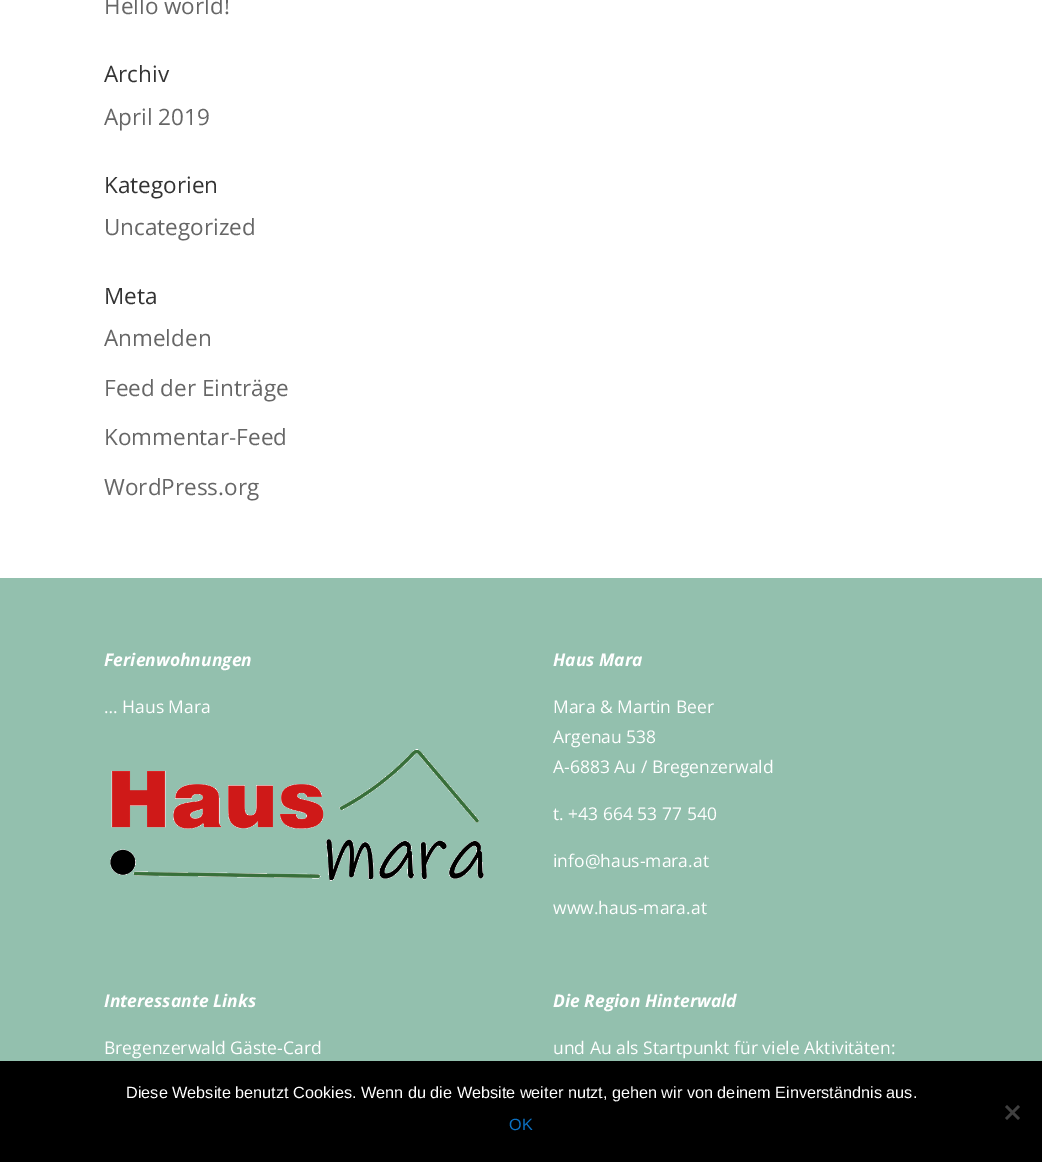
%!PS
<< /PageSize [1042 1162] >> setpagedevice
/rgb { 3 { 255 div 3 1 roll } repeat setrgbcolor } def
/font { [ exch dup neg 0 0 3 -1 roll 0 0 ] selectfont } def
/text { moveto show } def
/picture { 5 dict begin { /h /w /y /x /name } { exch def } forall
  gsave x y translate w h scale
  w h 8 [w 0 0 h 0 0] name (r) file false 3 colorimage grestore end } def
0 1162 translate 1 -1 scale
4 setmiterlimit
255 255 255 rgb
0 0 1042 1162 rectfill
147 192 174 rgb
0 578 1042 483 rectfill
(img_01.rgb) 110 749 374 132 picture
0 0 0 rgb
0 1061 1042 101 rectfill
64 64 64 rgb
1018 1105 moveto 2 2 rlineto -13 13 rlineto -2 -2 rlineto closepath fill
1005 1107 moveto 2 -2 rlineto 13 13 rlineto -2 2 rlineto closepath fill
/OpenSans-Regular 22.5 font
102 102 102 rgb
(Hello world!) 104 14 text
51 51 51 rgb
(Archiv) 104 82 text
102 102 102 rgb
(April 2019) 104 125 text
51 51 51 rgb
(Kategorien) 104 193 text
102 102 102 rgb
(Uncategorized) 104 235 text
51 51 51 rgb
(Meta) 104 304 text
102 102 102 rgb
(Anmelden) 104 346 text
(Feed der Einträge) 104 396 text
(Kommentar-Feed) 104 445 text
(WordPress.org) 104 495 text
/OpenSans-BoldItalic 17.5 font
255 255 255 rgb
(Ferienwohnungen) 104 666 text
/OpenSans-Regular 17.5 font
(… Haus Mara) 104 713 text
/OpenSans-BoldItalic 17.5 font
(Haus Mara) 553 666 text
/OpenSans-Regular 17.5 font
(Mara & Martin Beer) 553 713 text
(Argenau 538) 553 743 text
(A-6883 Au / Bregenzerwald) 553 773 text
(t. +43 664 53 77 540) 553 820 text
(info@haus-mara.at) 553 867 text
(www.haus-mara.at) 553 914 text
/OpenSans-BoldItalic 17.5 font
(Interessante Links) 104 1007 text
/OpenSans-Regular 17.5 font
(Bregenzerwald Gäste-Card) 104 1054 text
/OpenSans-BoldItalic 17.5 font
(Die Region Hinterwald) 553 1007 text
/OpenSans-Regular 17.5 font
(und Au als Startpunkt für viele Aktivitäten:) 553 1054 text
/LiberationSans-Regular 16.25 font
(Diese Website benutzt Cookies. Wenn du die Website weiter nutzt, gehen wir von deinem Einverständnis aus.) 126 1098 text
12 113 195 rgb
(OK) 509 1130 text
showpage
